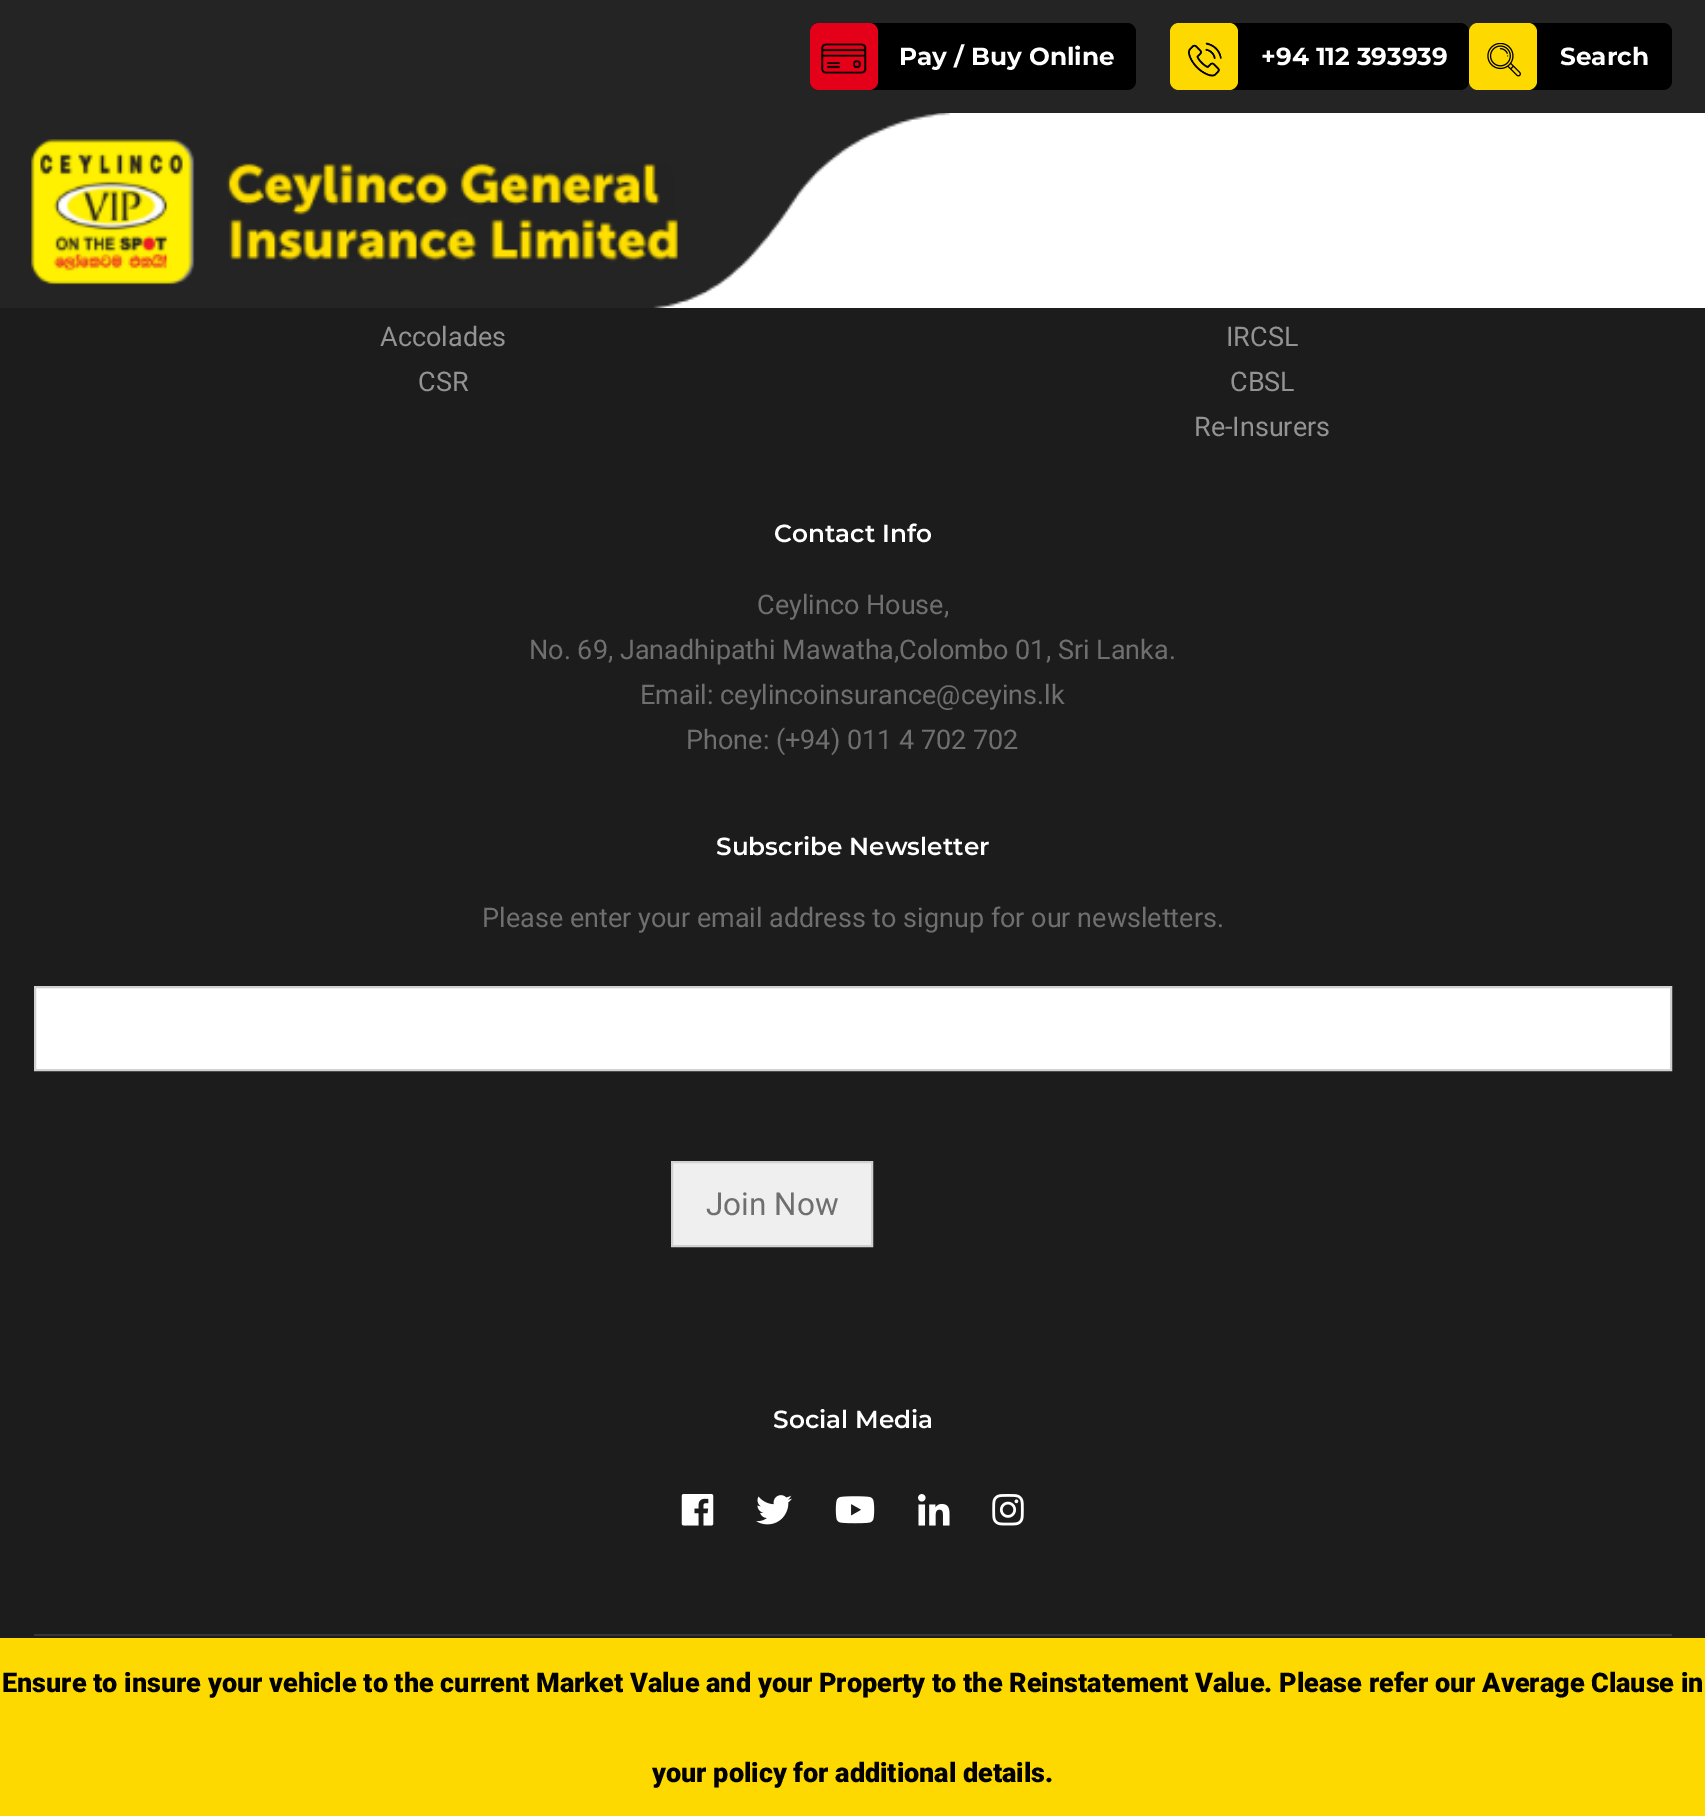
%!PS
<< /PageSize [1705 1816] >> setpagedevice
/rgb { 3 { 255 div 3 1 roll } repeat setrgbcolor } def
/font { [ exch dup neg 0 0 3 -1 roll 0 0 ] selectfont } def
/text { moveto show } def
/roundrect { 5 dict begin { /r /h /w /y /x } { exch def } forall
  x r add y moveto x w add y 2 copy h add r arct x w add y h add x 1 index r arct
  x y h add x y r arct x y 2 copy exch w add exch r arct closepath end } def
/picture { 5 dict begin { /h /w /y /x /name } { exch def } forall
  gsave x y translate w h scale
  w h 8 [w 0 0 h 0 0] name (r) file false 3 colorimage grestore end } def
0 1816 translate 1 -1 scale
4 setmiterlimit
28 28 28 rgb
0 0 1705 1816 rectfill
36 36 36 rgb
0 0 1705 113 rectfill
0 0 0 rgb
810 23 326 67 9 roundrect fill
229 0 25 rgb
810 23 68 67 9 roundrect fill
(img_01.rgb) 821 43 46 31 picture
0 0 0 rgb
1170 23 299 67 9 roundrect fill
253 217 0 rgb
1170 23 68 67 9 roundrect fill
(img_02.rgb) 1188 42 34 35 picture
0 0 0 rgb
1469 23 203 67 9 roundrect fill
253 217 0 rgb
1469 23 68 67 9 roundrect fill
(img_03.rgb) 1487 43 34 34 picture
255 255 255 rgb
652 113 1053 195 rectfill
(img_04.rgb) 0 113 950 195 picture
35 987 moveto 1636 0 rlineto 0 83 rlineto -1636 0 rlineto closepath gsave fill grestore
209 209 209 rgb
2 setlinewidth
stroke
239 239 239 rgb
672 1162 moveto 200 0 rlineto 0 84 rlineto -200 0 rlineto closepath gsave fill grestore
209 209 209 rgb
stroke
(img_05.rgb) 681 1494 33 32 picture
(img_06.rgb) 756 1495 36 30 picture
(img_07.rgb) 835 1496 40 28 picture
(img_08.rgb) 918 1494 32 32 picture
(img_09.rgb) 992 1494 32 32 picture
54 54 54 rgb
34 1634 1638 2 rectfill
253 217 0 rgb
0 1638 1705 178 rectfill
/Montserrat-Bold 24.75 font
255 255 255 rgb
(Pay / Buy Online) 899 65 text
(+94 112 393939) 1261 65 text
(Search) 1560 65 text
/Roboto-Regular 27 font
147 147 147 rgb
(Accolades) 380 346 text
(IRCSL) 1226 346 text
(CSR) 418 391 text
(CBSL) 1230 391 text
(Re-Insurers) 1194 436 text
/Montserrat-SemiBold 24.75 font
255 255 255 rgb
(Contact Info) 774 542 text
/Roboto-Regular 27 font
111 111 111 rgb
(Ceylinco House,) 757 614 text
(No. 69, Janadhipathi Mawatha,Colombo 01, Sri Lanka.) 529 659 text
(Email: ceylincoinsurance@ceyins.lk) 640 704 text
(Phone: \(+94\) 011 4 702 702) 686 749 text
/Montserrat-SemiBold 24.75 font
255 255 255 rgb
(Subscribe Newsletter) 716 855 text
/Roboto-Regular 27 font
111 111 111 rgb
(Please enter your email address to signup for our newsletters.) 482 927 text
/Roboto-Regular 31.5 font
(Join Now) 706 1215 text
/Montserrat-SemiBold 24.75 font
255 255 255 rgb
(Social Media) 773 1428 text
/Roboto-Black 27 font
0 0 0 rgb
(Ensure to insure your vehicle to the current Market Value and your Property to the Reinstatement Value. Please refer our Average Clause in) 2 1692 text
(your policy for additional details.) 652 1782 text
showpage
